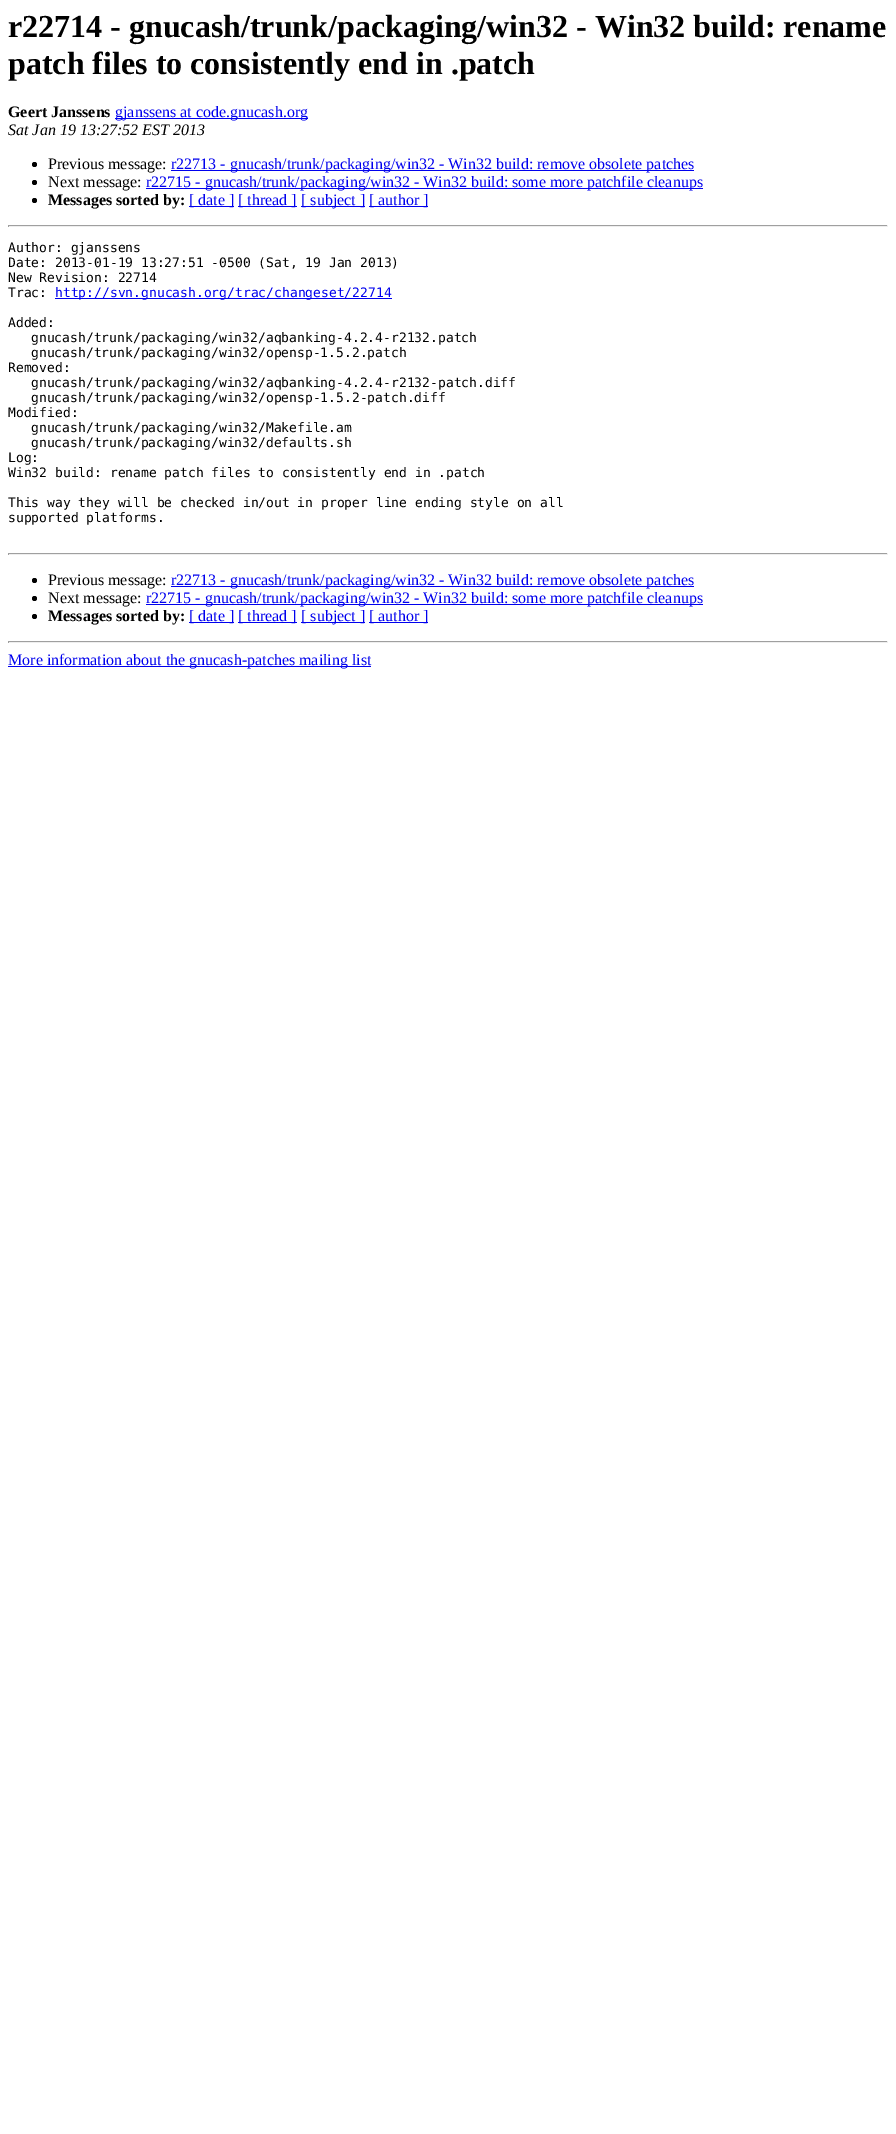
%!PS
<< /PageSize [896 2134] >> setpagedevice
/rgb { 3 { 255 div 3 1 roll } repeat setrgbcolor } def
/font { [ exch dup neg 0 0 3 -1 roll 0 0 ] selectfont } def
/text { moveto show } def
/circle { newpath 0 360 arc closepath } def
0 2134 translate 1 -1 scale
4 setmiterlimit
255 255 255 rgb
0 0 896 2134 rectfill
0 0 238 rgb
115 118 193 1 rectfill
0 0 0 rgb
34.5 164.5 2.5 circle fill
0 0 238 rgb
171 170 523 1 rectfill
0 0 0 rgb
34.5 182.5 2.5 circle fill
0 0 238 rgb
146 188 557 1 rectfill
0 0 0 rgb
34.5 200.5 2.5 circle fill
0 0 238 rgb
189 206 45 1 rectfill
238 206 59 1 rectfill
301 206 64 1 rectfill
369 206 59 1 rectfill
159 159 159 rgb
8 225 880 1 rectfill
238 238 238 rgb
887 225 1 2 rectfill
8 226 880 1 rectfill
159 159 159 rgb
8 225 1 2 rectfill
0 0 238 rgb
55 298 337 1 rectfill
159 159 159 rgb
8 553 880 1 rectfill
238 238 238 rgb
887 553 1 2 rectfill
8 554 880 1 rectfill
159 159 159 rgb
8 553 1 2 rectfill
0 0 0 rgb
34.5 580.5 2.5 circle fill
0 0 238 rgb
171 586 523 1 rectfill
0 0 0 rgb
34.5 598.5 2.5 circle fill
0 0 238 rgb
146 604 557 1 rectfill
0 0 0 rgb
34.5 616.5 2.5 circle fill
0 0 238 rgb
189 622 45 1 rectfill
238 622 59 1 rectfill
301 622 64 1 rectfill
369 622 59 1 rectfill
159 159 159 rgb
8 641 880 1 rectfill
238 238 238 rgb
887 641 1 2 rectfill
8 642 880 1 rectfill
159 159 159 rgb
8 641 1 2 rectfill
0 0 238 rgb
8 666 363 1 rectfill
/LiberationSerif-Bold 32 font
0 0 0 rgb
(r22714 - gnucash/trunk/packaging/win32 - Win32 build: rename) 8 37 text
(patch files to consistently end in .patch) 8 74 text
/LiberationSerif-Bold 16 font
(Geert Janssens) 8 117 text
/LiberationSerif-Regular 16 font
0 0 238 rgb
(gjanssens at code.gnucash.org) 115 117 text
/LiberationSerif-Italic 16 font
0 0 0 rgb
(Sat Jan 19 13:27:52 EST 2013) 8 135 text
/LiberationSerif-Regular 16 font
(Previous message:) 48 169 text
0 0 238 rgb
(r22713 - gnucash/trunk/packaging/win32 - Win32 build: remove obsolete patches) 171 169 text
0 0 0 rgb
(Next message:) 48 187 text
0 0 238 rgb
(r22715 - gnucash/trunk/packaging/win32 - Win32 build: some more patchfile cleanups) 146 187 text
/LiberationSerif-Bold 16 font
0 0 0 rgb
(Messages sorted by:) 48 205 text
/LiberationSerif-Regular 16 font
0 0 238 rgb
([ date ]) 189 205 text
([ thread ]) 238 205 text
([ subject ]) 301 205 text
([ author ]) 369 205 text
/DejaVuSansMono-Regular 13 font
0 0 0 rgb
(Author: gjanssens) 8 252 text
(Date: 2013-01-19 13:27:51 -0500 \(Sat, 19 Jan 2013\)) 8 267 text
(New Revision: 22714) 8 282 text
(Trac:) 8 297 text
0 0 238 rgb
(http://svn.gnucash.org/trac/changeset/22714) 55 297 text
0 0 0 rgb
(Added:) 8 327 text
(gnucash/trunk/packaging/win32/aqbanking-4.2.4-r2132.patch) 31 342 text
(gnucash/trunk/packaging/win32/opensp-1.5.2.patch) 31 357 text
(Removed:) 8 372 text
(gnucash/trunk/packaging/win32/aqbanking-4.2.4-r2132-patch.diff) 31 387 text
(gnucash/trunk/packaging/win32/opensp-1.5.2-patch.diff) 31 402 text
(Modified:) 8 417 text
(gnucash/trunk/packaging/win32/Makefile.am) 31 432 text
(gnucash/trunk/packaging/win32/defaults.sh) 31 447 text
(Log:) 8 462 text
(Win32 build: rename patch files to consistently end in .patch) 8 477 text
(This way they will be checked in/out in proper line ending style on all) 8 507 text
(supported platforms.) 8 522 text
/LiberationSerif-Regular 16 font
(Previous message:) 48 585 text
0 0 238 rgb
(r22713 - gnucash/trunk/packaging/win32 - Win32 build: remove obsolete patches) 171 585 text
0 0 0 rgb
(Next message:) 48 603 text
0 0 238 rgb
(r22715 - gnucash/trunk/packaging/win32 - Win32 build: some more patchfile cleanups) 146 603 text
/LiberationSerif-Bold 16 font
0 0 0 rgb
(Messages sorted by:) 48 621 text
/LiberationSerif-Regular 16 font
0 0 238 rgb
([ date ]) 189 621 text
([ thread ]) 238 621 text
([ subject ]) 301 621 text
([ author ]) 369 621 text
(More information about the gnucash-patches mailing list) 8 665 text
showpage
